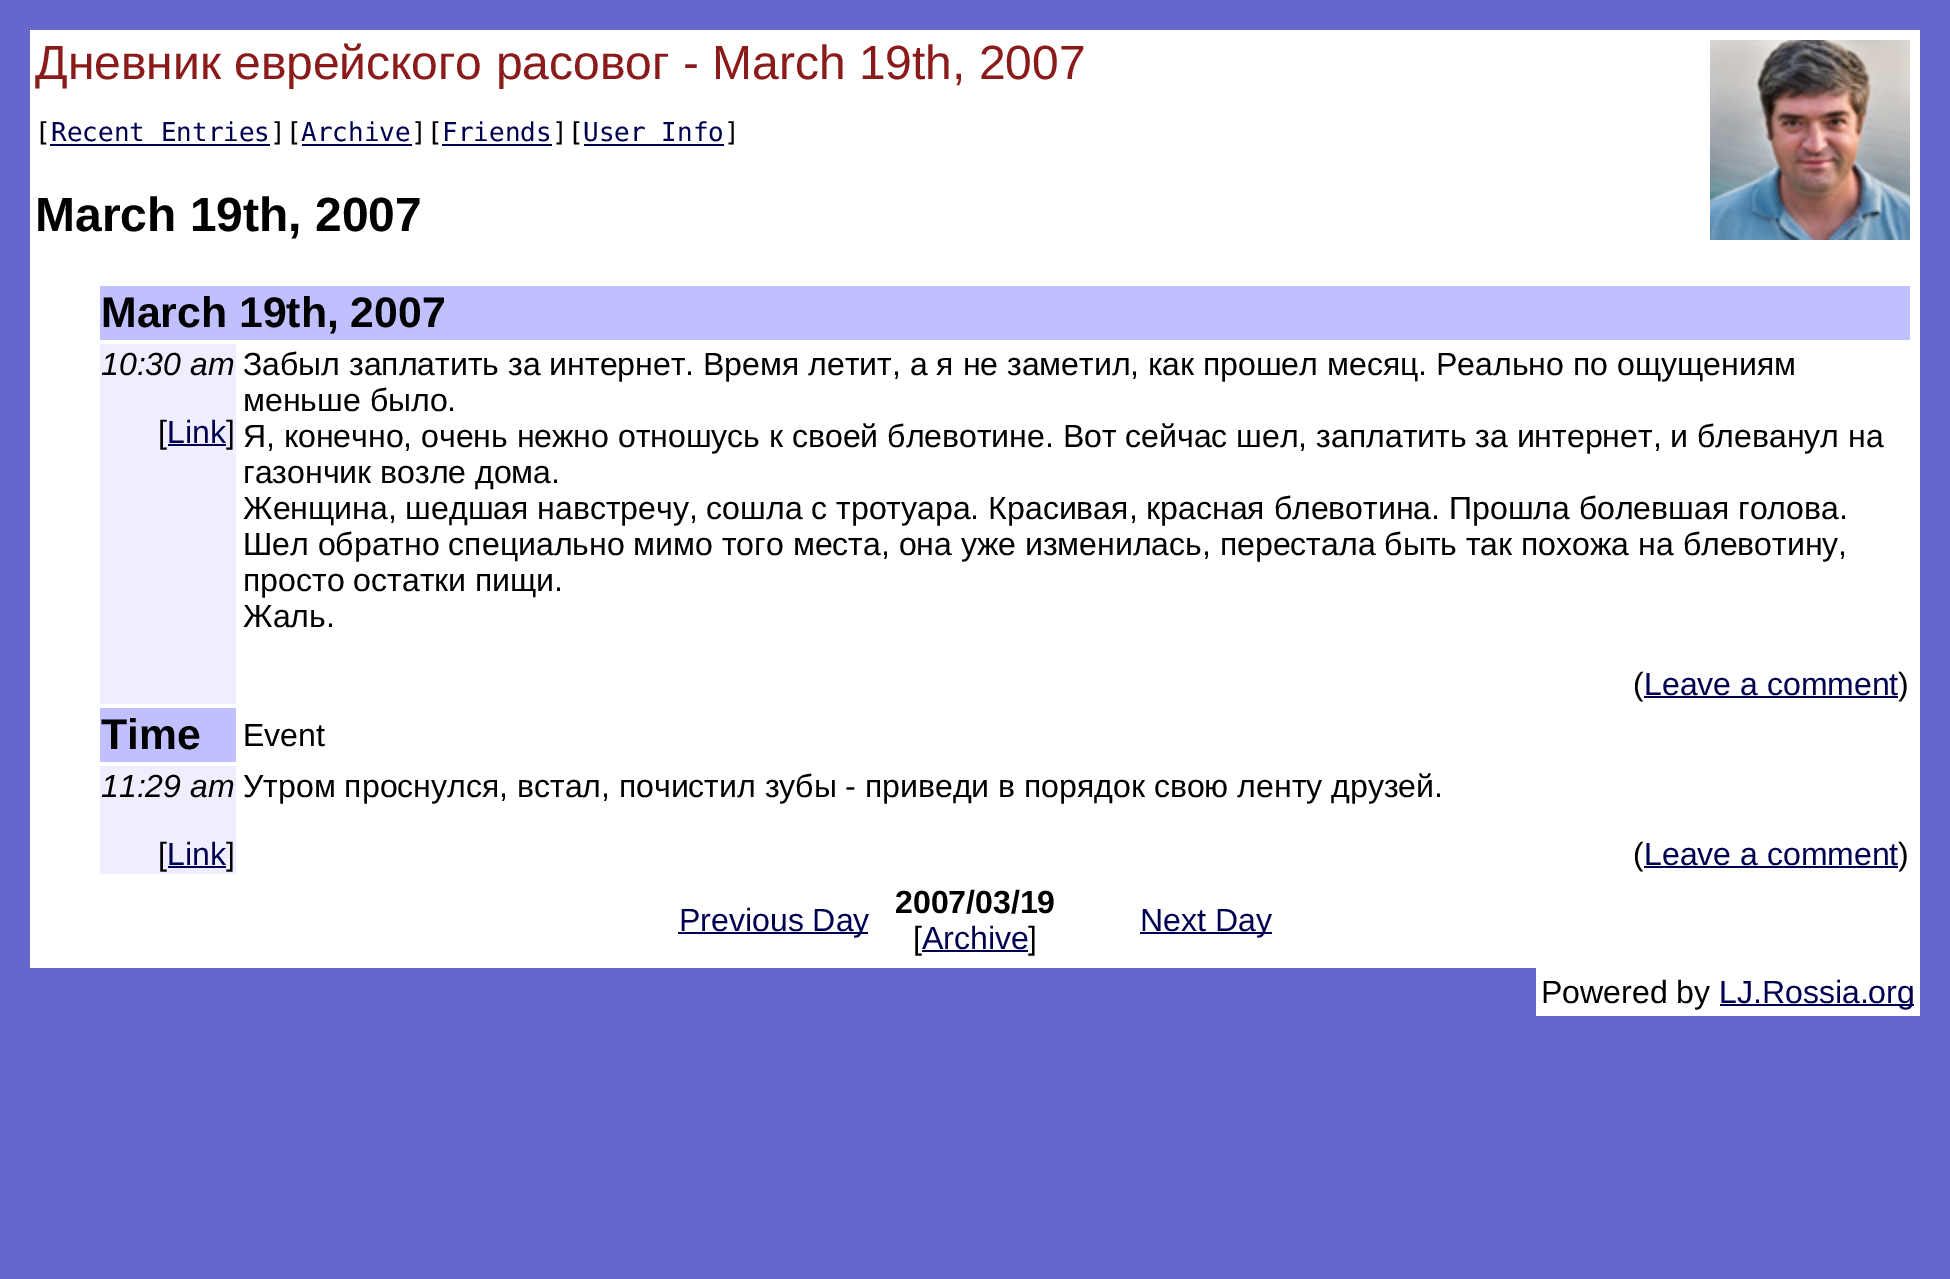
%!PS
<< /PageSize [1950 1279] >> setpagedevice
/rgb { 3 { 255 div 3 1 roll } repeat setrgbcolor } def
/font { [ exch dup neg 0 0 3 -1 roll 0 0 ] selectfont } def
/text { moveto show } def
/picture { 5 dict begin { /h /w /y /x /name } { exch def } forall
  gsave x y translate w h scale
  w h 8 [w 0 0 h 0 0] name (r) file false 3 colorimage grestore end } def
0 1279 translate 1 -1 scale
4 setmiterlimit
102 102 204 rgb
0 0 1950 1279 rectfill
255 255 255 rgb
30 30 1890 938 rectfill
(img_01.rgb) 1710 40 200 200 picture
0 0 80 rgb
50 144 220 2 rectfill
302 144 110 2 rectfill
442 144 110 2 rectfill
584 144 140 2 rectfill
192 192 255 rgb
100 286 1810 54 rectfill
238 238 255 rgb
100 344 136 360 rectfill
0 0 80 rgb
168 444 58 2 rectfill
1644 696 254 2 rectfill
192 192 255 rgb
100 708 136 54 rectfill
238 238 255 rgb
100 766 136 108 rectfill
0 0 80 rgb
168 866 58 2 rectfill
1644 866 254 2 rectfill
678 932 190 2 rectfill
922 950 106 2 rectfill
1140 932 132 2 rectfill
255 255 255 rgb
1536 968 384 48 rectfill
0 0 80 rgb
1720 1004 194 2 rectfill
/LiberationSans-Regular 48 font
139 26 26 rgb
(Дневник еврейского расовог - March 19th, 2007) 35 79 text
/DejaVuSansMono-Regular 26 font
0 0 0 rgb
([) 35 141 text
0 0 80 rgb
(Recent Entries) 51 141 text
0 0 0 rgb
(][) 270 141 text
0 0 80 rgb
(Archive) 301 141 text
0 0 0 rgb
(][) 411 141 text
0 0 80 rgb
(Friends) 442 141 text
0 0 0 rgb
(][) 552 141 text
0 0 80 rgb
(User Info) 583 141 text
0 0 0 rgb
(]) 724 141 text
/LiberationSans-Bold 48 font
(March 19th, 2007) 35 231 text
/LiberationSans-Bold 42.75 font
(March 19th, 2007) 101 327 text
/LiberationSans-Italic 32 font
(10:30 am) 101 375 text
/LiberationSans-Regular 32 font
([) 158 443 text
0 0 80 rgb
(Link) 167 443 text
0 0 0 rgb
(]) 226 443 text
(Забыл заплатить за интернет. Время летит, а я не заметил, как прошел месяц. Реально по ощущениям) 243 375 text
(меньше было.) 243 411 text
(Я, конечно, очень нежно отношусь к своей блевотине. Вот сейчас шел, заплатить за интернет, и блеванул на) 243 447 text
(газончик возле дома.) 243 483 text
(Женщина, шедшая навстречу, сошла с тротуара. Красивая, красная блевотина. Прошла болевшая голова.) 243 519 text
(Шел обратно специально мимо того места, она уже изменилась, перестала быть так похожа на блевотину,) 243 555 text
(просто остатки пищи.) 243 591 text
(Жаль.) 243 627 text
(\() 1633 695 text
0 0 80 rgb
(Leave a comment) 1644 695 text
0 0 0 rgb
(\)) 1898 695 text
/LiberationSans-Bold 42.75 font
(Time) 101 749 text
/LiberationSans-Regular 32 font
(Event) 243 746 text
/LiberationSans-Italic 32 font
(11:29 am) 101 797 text
/LiberationSans-Regular 32 font
([) 158 865 text
0 0 80 rgb
(Link) 167 865 text
0 0 0 rgb
(]) 226 865 text
(Утром проснулся, встал, почистил зубы - приведи в порядок свою ленту друзей.) 243 797 text
(\() 1633 865 text
0 0 80 rgb
(Leave a comment) 1644 865 text
0 0 0 rgb
(\)) 1898 865 text
0 0 80 rgb
(Previous Day) 679 931 text
/LiberationSans-Bold 32 font
0 0 0 rgb
(2007/03/19) 895 913 text
/LiberationSans-Regular 32 font
([) 913 949 text
0 0 80 rgb
(Archive) 922 949 text
0 0 0 rgb
(]) 1028 949 text
0 0 80 rgb
(Next Day) 1140 931 text
0 0 0 rgb
(Powered by) 1541 1003 text
0 0 80 rgb
(LJ.Rossia.org) 1719 1003 text
showpage
